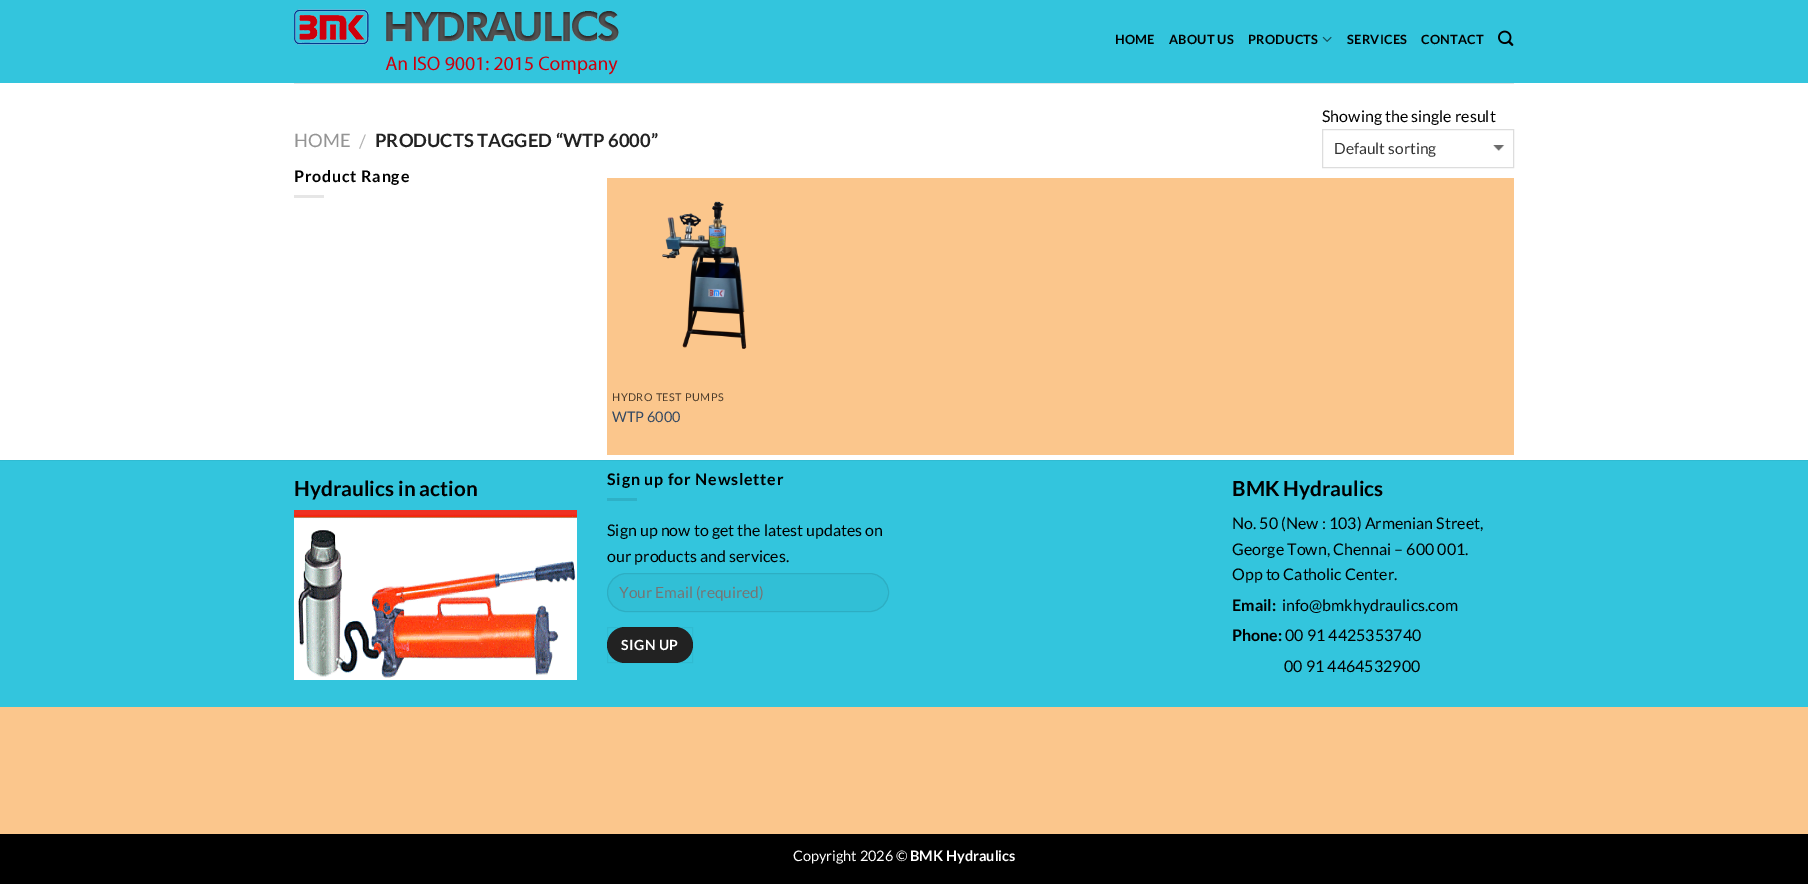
%!PS
<< /PageSize [1808 884] /PageUsesTransparency true >> setpagedevice
/rgb { 3 { 255 div 3 1 roll } repeat setrgbcolor } def
/font { [ exch dup neg 0 0 3 -1 roll 0 0 ] selectfont } def
/text { moveto show } def
/alpha { dup .setfillconstantalpha .setstrokeconstantalpha } def
/roundrect { 5 dict begin { /r /h /w /y /x } { exch def } forall
  x r add y moveto x w add y 2 copy h add r arct x w add y h add x 1 index r arct
  x y h add x y r arct x y 2 copy exch w add exch r arct closepath end } def
/picture { 5 dict begin { /h /w /y /x /name } { exch def } forall
  gsave x y translate w h scale
  w h 8 [w 0 0 h 0 0] name (r) file false 3 colorimage grestore end } def
0 .pushpdf14devicefilter
0 884 translate 1 -1 scale
4 setmiterlimit
251 198 140 rgb
0 0 1808 884 rectfill
255 255 255 rgb
0 83 1808 377 rectfill
51 197 221 rgb
0 0 1808 83 rectfill
(img_01.rgb) 294 9 325 66 picture
(img_02.rgb) 1322 36 10 6 picture
(img_03.rgb) 1498 30 16 16 picture
230 230 230 rgb
294 83 1220 1 rectfill
(img_04.rgb) 1493 145 12 6 picture
221 221 221 rgb
1322.5 129.5 191 38 rectstroke
230 230 230 rgb
294 195 30 3 rectfill
251 198 140 rgb
607 178 907 277 rectfill
(img_05.rgb) 662 201 85 148 picture
51 197 221 rgb
0 461 1808 246 rectfill
48 187 210 rgb
0 460 1808 1 rectfill
(img_06.rgb) 294 510 283 170 picture
46 177 199 rgb
607 498 30 3 rectfill
49 191 214 rgb
607 573 282 39 19.5 roundrect fill
0.09 alpha
0 0 0 rgb
607.5 573.5 281 38 19 roundrect stroke
1 alpha
34 34 34 rgb
607 627 86 36 18 roundrect fill
0.05 alpha
0 0 0 rgb
607.5 627.5 85 35 rectstroke
1 alpha
0 834 1808 50 rectfill
/Lato-Bold 12.75 font
1115 44 moveto 0.25 0 (HOME) ashow
1169 44 moveto 0.25 0 (ABOUT US) ashow
1248 44 moveto 0.25 0 (PRODUCTS) ashow
1347 44 moveto 0.25 0 (SERVICES) ashow
1421 44 moveto 0.25 0 (CONTACT) ashow
/Lato-Regular 18.4 font
148 148 148 rgb
(HOME) 294 147 text
178 178 178 rgb
(/) 359 148 text
/Lato-Bold 18.4 font
34 34 34 rgb
(PRODUCTS TAGGED “WTP 6000”) 375 147 text
/Lato-Regular 16 font
0 0 0 rgb
(Showing the single result) 1322 122 text
/Lato-Regular 15.5 font
51 51 51 rgb
(Default sorting) 1334 154 text
/Lato-Bold 16 font
0 0 0 rgb
294 182 moveto 0.8 0 (Product Range) ashow
/Lato-Regular 10.75 font
75 59 42 rgb
612 401 moveto 0.5 0 (HYDRO TEST PUMPS) ashow
/Lato-Regular 14.5 font
51 72 98 rgb
(WTP 6000) 612 422 text
/Lato-Bold 20.75 font
0 0 0 rgb
(Hydraulics in action) 294 496 text
/Lato-Bold 16 font
607 485 moveto 0.8 0 (Sign up for Newsletter) ashow
/Lato-Regular 16 font
(Sign up now to get the latest updates on) 607 536 text
(our products and services.) 607 562 text
/Lato-Regular 15.5 font
117 117 117 rgb
(Your Email \(required\)) 619 598 text
/Lato-Bold 14 font
255 255 255 rgb
621 650 moveto 0.5 0 (SIGN UP) ashow
/Lato-Bold 20.75 font
0 0 0 rgb
(BMK Hydraulics) 1232 496 text
/Lato-Regular 16 font
(No. 50 \(New : 103\) Armenian Street,) 1232 529 text
(George Town, Chennai – 600 001.) 1232 555 text
(Opp to Catholic Center.) 1232 580 text
/Lato-Bold 16 font
(Email:) 1232 611 text
/Lato-Regular 16 font
(info@bmkhydraulics.com) 1282 611 text
/Lato-Bold 16 font
(Phone:) 1232 641 text
/Lato-Regular 16 font
(00 91 4425353740) 1285 641 text
(00 91 4464532900) 1284 672 text
/Lato-Regular 14.5 font
255 255 255 rgb
(Copyright 2026 ©) 793 861 text
/Lato-Bold 14.5 font
(BMK Hydraulics) 910 861 text
.poppdf14devicefilter showpage
